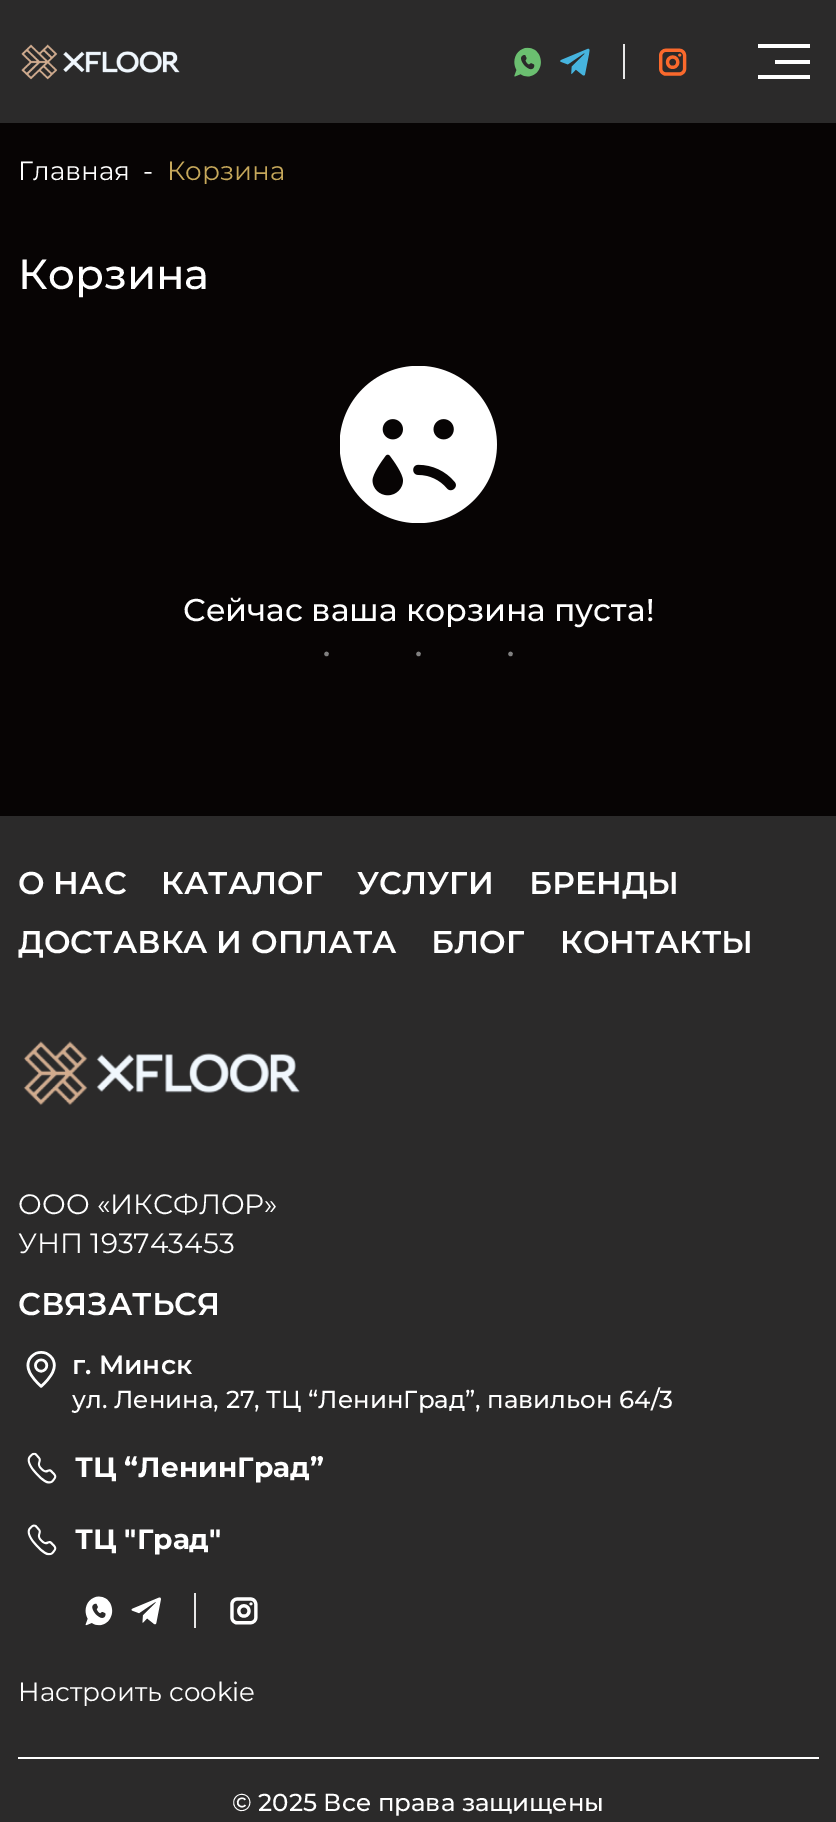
%!PS
<< /PageSize [836 1822] >> setpagedevice
/rgb { 3 { 255 div 3 1 roll } repeat setrgbcolor } def
/font { [ exch dup neg 0 0 3 -1 roll 0 0 ] selectfont } def
/text { moveto show } def
/picture { 5 dict begin { /h /w /y /x /name } { exch def } forall
  gsave x y translate w h scale
  w h 8 [w 0 0 h 0 0] name (r) file false 3 colorimage grestore end } def
0 1822 translate 1 -1 scale
4 setmiterlimit
7 4 4 rgb
0 0 836 1822 rectfill
43 42 42 rgb
0 0 836 123 rectfill
(img_01.rgb) 21 44 159 36 picture
(img_02.rgb) 514 47 27 30 picture
(img_03.rgb) 560 48 30 28 picture
231 231 231 rgb
623 44 2 35 rectfill
(img_04.rgb) 659 48 28 28 picture
255 255 255 rgb
775 60 35 4 rectfill
758 44 52 4 rectfill
758 75 52 4 rectfill
(img_05.rgb) 340 366 157 157 picture
43 42 42 rgb
0 816 836 1006 rectfill
(img_06.rgb) 23 1041 277 65 picture
(img_07.rgb) 26 1351 30 37 picture
(img_08.rgb) 27 1452 30 32 picture
(img_09.rgb) 27 1524 30 32 picture
(img_10.rgb) 85 1596 28 30 picture
(img_11.rgb) 131 1597 30 28 picture
231 231 231 rgb
194 1593 2 35 rectfill
(img_12.rgb) 230 1597 28 28 picture
255 255 255 rgb
18 1757 801 2 rectfill
/Montserrat-Regular 26.25 font
(Главная) 18 180 text
(-) 143 180 text
gsave
18 158 801 26 rectclip
198 168 91 rgb
(Корзина) 167 180 text
grestore
/Montserrat-Medium 42 font
(Корзина) 18 289 text
/Montserrat-Medium 31.5 font
(Сейчас ваша корзина пуста!) 183 621 text
/LiberationSerif-Regular 39.5 font
128 128 128 rgb
320 667 moveto 79 0 (···) ashow
/Montserrat-SemiBold 31.5 font
255 255 255 rgb
(О НАС) 18 894 text
(КАТАЛОГ) 161 894 text
(УСЛУГИ) 357 894 text
(БРЕНДЫ) 529 894 text
(ДОСТАВКА И ОПЛАТА) 18 953 text
(БЛОГ) 431 953 text
(КОНТАКТЫ) 560 953 text
/Montserrat-Regular 28 font
(ООО «ИКСФЛОР») 18 1214 text
(УНП 193743453) 18 1253 text
/Montserrat-SemiBold 31.5 font
(СВЯЗАТЬСЯ) 18 1315 text
/Montserrat-SemiBold 26.25 font
(г. Минск) 72 1374 text
/Montserrat-Medium 24.5 font
(ул. Ленина, 27, ТЦ “ЛенинГрад”, павильон 64/3) 72 1408 text
/Montserrat-Bold 28 font
(ТЦ “ЛенинГрад”) 75 1477 text
(ТЦ "Град") 75 1549 text
/Montserrat-Regular 26.25 font
(Настроить cookie) 18 1701 text
/Montserrat-Medium 24.5 font
(© 2025 Все права защищены) 232 1811 text
showpage
